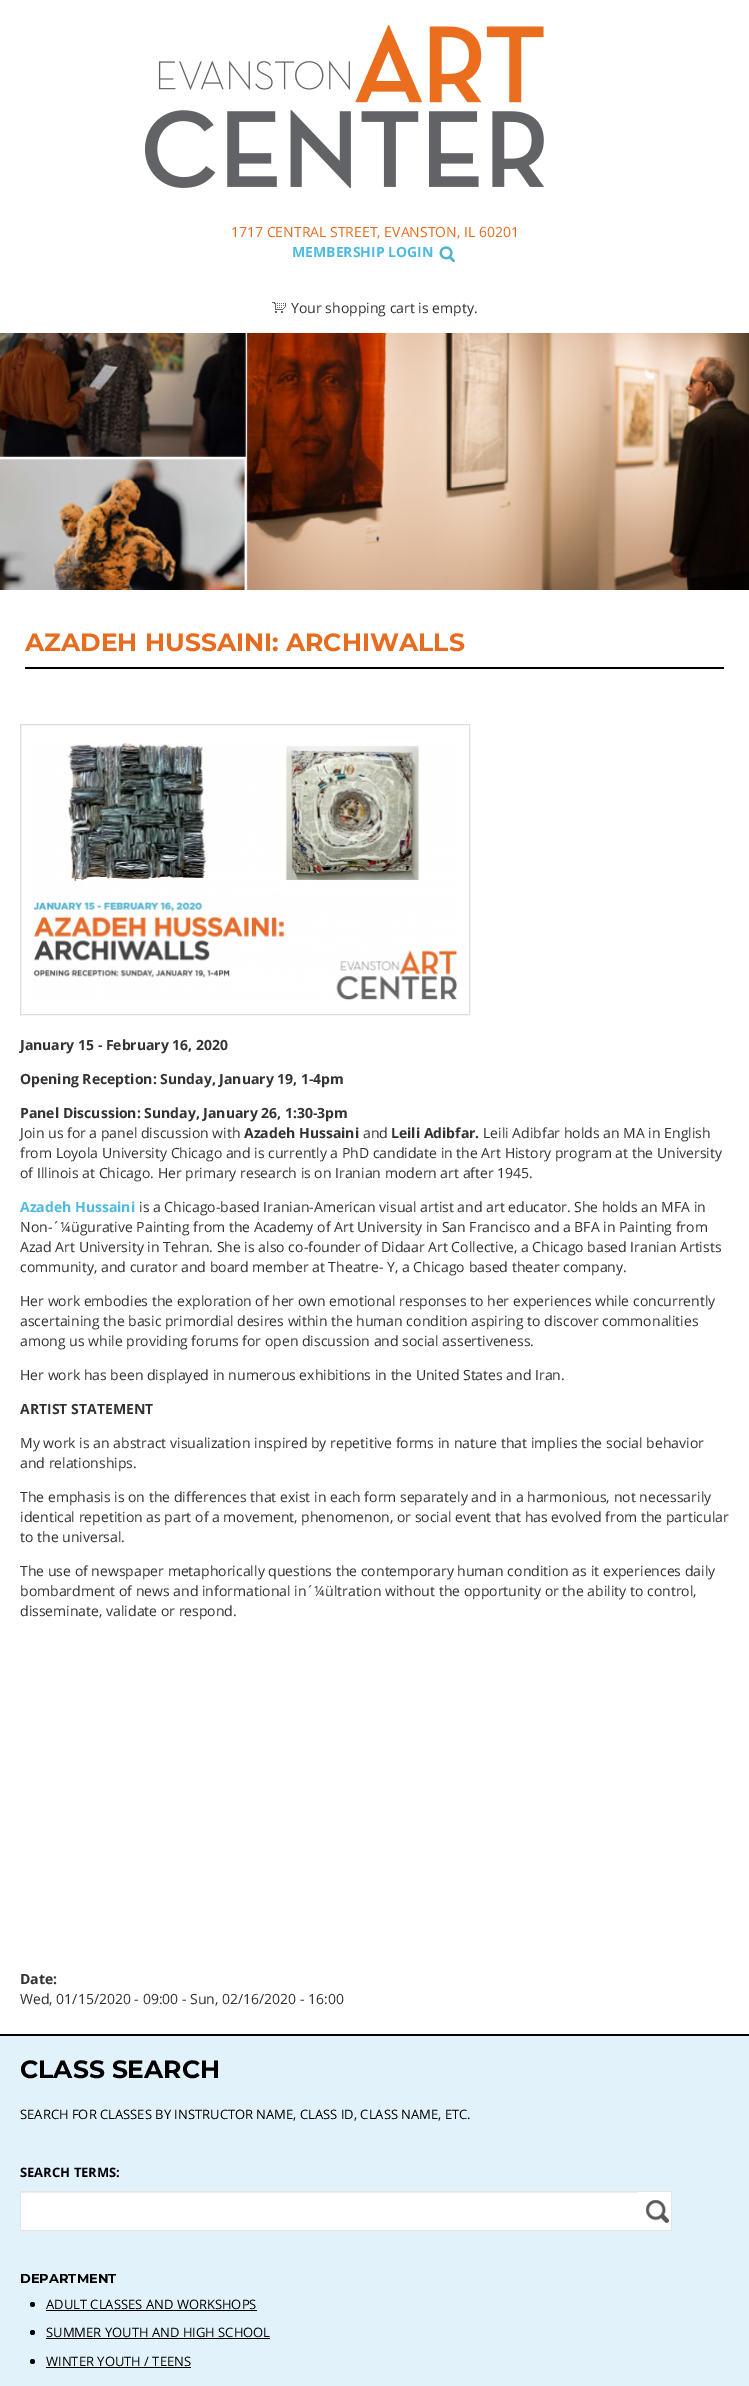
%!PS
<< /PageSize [749 2386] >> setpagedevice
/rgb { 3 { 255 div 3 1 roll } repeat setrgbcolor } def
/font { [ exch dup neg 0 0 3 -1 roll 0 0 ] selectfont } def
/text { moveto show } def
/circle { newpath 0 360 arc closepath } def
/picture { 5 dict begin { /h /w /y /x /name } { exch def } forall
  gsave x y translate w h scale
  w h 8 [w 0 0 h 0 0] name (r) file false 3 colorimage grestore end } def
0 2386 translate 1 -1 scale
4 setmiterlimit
255 255 255 rgb
0 0 749 2386 rectfill
(img_01.rgb) 145 25 399 163 picture
(img_02.rgb) 439 246 16 17 picture
(img_03.rgb) 272 302 14 11 picture
0 0 0 rgb
0 2034 749 2 rectfill
(img_04.rgb) 0 333 749 257 picture
25 667 699 2 rectfill
221 221 221 rgb
20.5 724.5 449 290 rectstroke
(img_05.rgb) 33 743 425 258 picture
226 242 250 rgb
0 2036 749 350 rectfill
255 255 255 rgb
21 2193 616 37 rectfill
236 236 236 rgb
21 2192 616 1 rectfill
228 228 228 rgb
20 2191 652 1 rectfill
20 2230 617 1 rectfill
20 2191 1 40 rectfill
255 255 255 rgb
637 2192 34 38 rectfill
(img_06.rgb) 646 2200 23 23 picture
228 228 228 rgb
671 2191 1 40 rectfill
637 2230 35 1 rectfill
0 0 0 rgb
32.5 2304.5 2.5 circle fill
46 2310 211 1 rectfill
32.5 2332.5 2.5 circle fill
46 2338 224 1 rectfill
32.5 2361.5 2.5 circle fill
46 2367 145 1 rectfill
/OpenSans-Regular 14 font
232 108 31 rgb
(1717 CENTRAL STREET, EVANSTON, IL 60201) 231 237 text
/OpenSans-Bold 14 font
79 187 225 rgb
(MEMBERSHIP LOGIN) 292 257 text
/OpenSans-Regular 14 font
51 51 51 rgb
(Your shopping cart is empty.) 291 313 text
/Montserrat-Bold 25 font
232 108 31 rgb
(AZADEH HUSSAINI: ARCHIWALLS) 25 651 text
/OpenSans-Bold 14 font
51 51 51 rgb
(January 15 - February 16, 2020) 20 1050 text
(Opening Reception: Sunday, January 19, 1-4pm) 20 1084 text
(Panel Discussion: Sunday, January 26, 1:30-3pm) 20 1118 text
/OpenSans-Regular 14 font
(Join us for a panel discussion with) 20 1138 text
/OpenSans-Bold 14 font
(Azadeh Hussaini) 244 1138 text
/OpenSans-Regular 14 font
(and) 363 1138 text
/OpenSans-Bold 14 font
(Leili Adibfar.) 391 1138 text
/OpenSans-Regular 14 font
(Leili Adibfar holds an MA in English) 483 1138 text
(from Loyola University Chicago and is currently a PhD candidate in the Art History program at the University) 20 1158 text
(of Illinois at Chicago. Her primary research is on Iranian modern art after 1945.) 20 1178 text
/OpenSans-Bold 14 font
79 187 225 rgb
(Azadeh Hussaini) 20 1212 text
/OpenSans-Regular 14 font
51 51 51 rgb
(is a Chicago-based Iranian-American visual artist and art educator. She holds an MFA in) 139 1212 text
(Non-´¼ügurative Painting from the Academy of Art University in San Francisco and a BFA in Painting from) 20 1232 text
(Azad Art University in Tehran. She is also co-founder of Didaar Art Collective, a Chicago based Iranian Artists) 20 1252 text
(community, and curator and board member at Theatre- Y, a Chicago based theater company.) 20 1272 text
(Her work embodies the exploration of her own emotional responses to her experiences while concurrently) 20 1306 text
(ascertaining the basic primordial desires within the human condition aspiring to discover commonalities) 20 1326 text
(among us while providing forums for open discussion and social assertiveness.) 20 1346 text
(Her work has been displayed in numerous exhibitions in the United States and Iran.) 20 1380 text
/OpenSans-Bold 14 font
(ARTIST STATEMENT) 20 1414 text
/OpenSans-Regular 14 font
(My work is an abstract visualization inspired by repetitive forms in nature that implies the social behavior) 20 1448 text
(and relationships.) 20 1468 text
(The emphasis is on the differences that exist in each form separately and in a harmonious, not necessarily) 20 1502 text
(identical repetition as part of a movement, phenomenon, or social event that has evolved from the particular) 20 1522 text
(to the universal.) 20 1542 text
(The use of newspaper metaphorically questions the contemporary human condition as it experiences daily) 20 1576 text
(bombardment of news and informational in´¼ültration without the opportunity or the ability to control,) 20 1596 text
(disseminate, validate or respond.) 20 1616 text
/OpenSans-Bold 14 font
(Date:) 20 1984 text
/OpenSans-Regular 14 font
(Wed, 01/15/2020 - 09:00 - Sun, 02/16/2020 - 16:00) 20 2004 text
/Montserrat-Bold 25 font
0 0 0 rgb
(CLASS SEARCH) 20 2078 text
/OpenSans-Regular 13 font
(SEARCH FOR CLASSES BY INSTRUCTOR NAME, CLASS ID, CLASS NAME, ETC.) 20 2119 text
/OpenSans-Bold 13 font
(SEARCH TERMS:) 20 2177 text
/Montserrat-Bold 13 font
(DEPARTMENT) 20 2283 text
/OpenSans-Regular 13 font
(ADULT CLASSES AND WORKSHOPS) 46 2309 text
(SUMMER YOUTH AND HIGH SCHOOL) 46 2337 text
(WINTER YOUTH / TEENS) 46 2366 text
showpage
